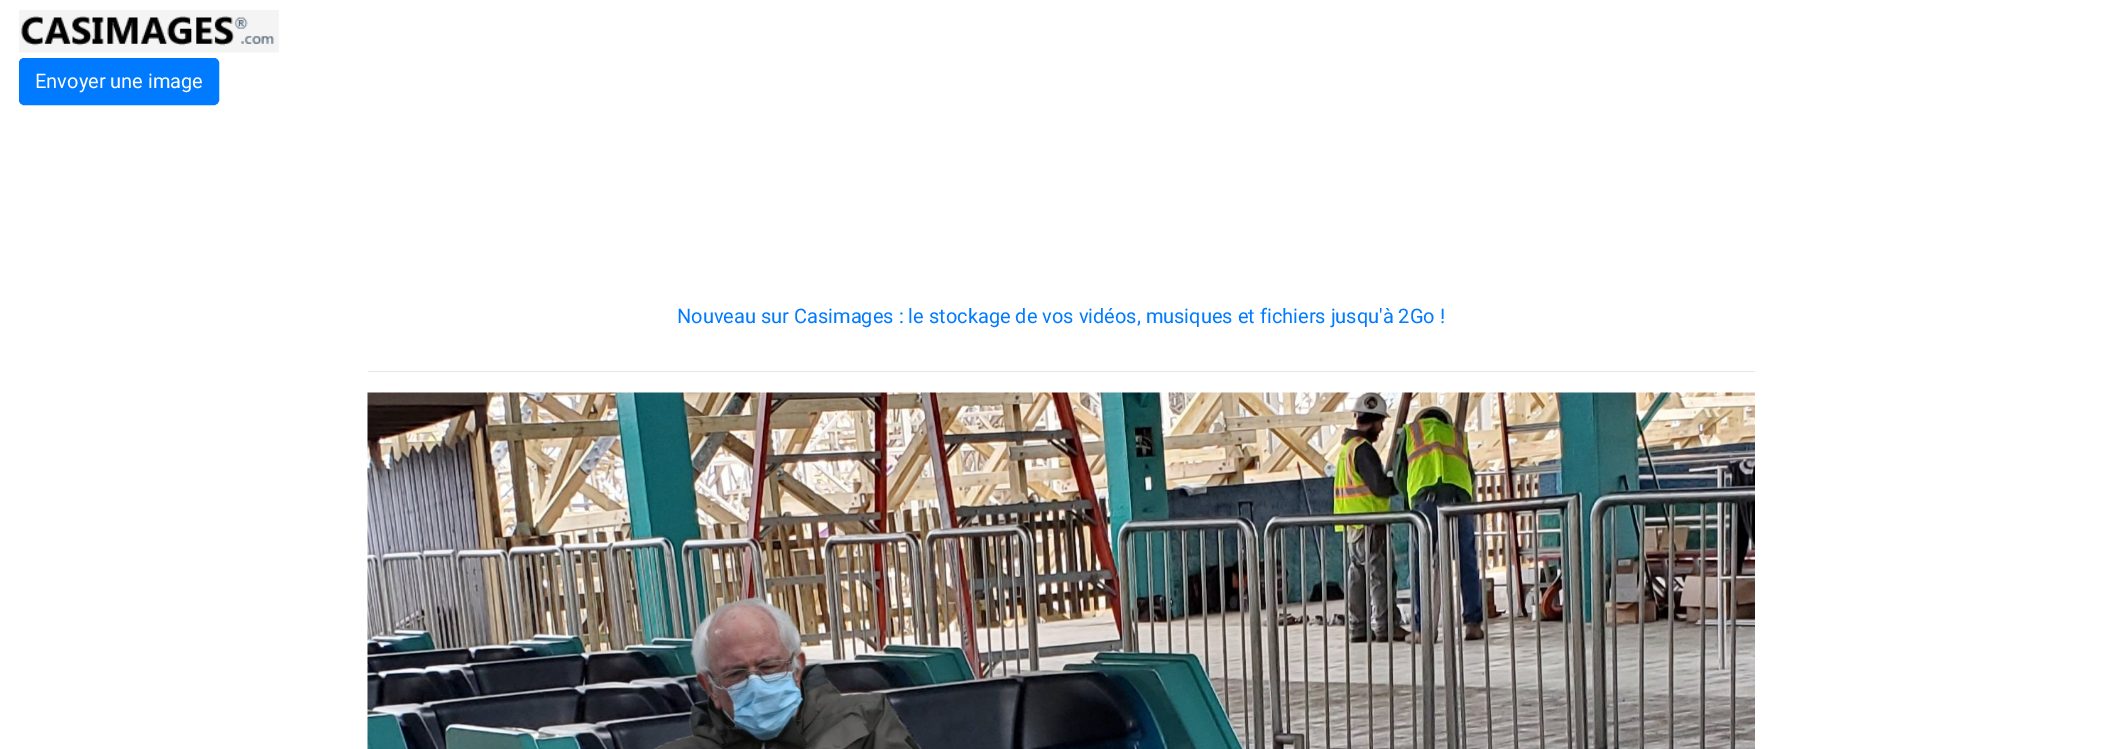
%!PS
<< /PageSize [2122 749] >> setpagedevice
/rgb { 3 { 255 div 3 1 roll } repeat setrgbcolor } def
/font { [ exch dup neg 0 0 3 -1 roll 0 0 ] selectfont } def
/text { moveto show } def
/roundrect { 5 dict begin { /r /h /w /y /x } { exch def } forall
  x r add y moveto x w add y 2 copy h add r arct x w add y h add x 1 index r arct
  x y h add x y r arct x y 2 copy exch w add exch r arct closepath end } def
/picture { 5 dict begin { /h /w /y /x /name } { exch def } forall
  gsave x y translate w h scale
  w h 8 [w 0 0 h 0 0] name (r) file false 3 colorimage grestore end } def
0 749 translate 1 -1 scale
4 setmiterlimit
255 255 255 rgb
0 0 2122 749 rectfill
(img_01.rgb) 19 10 260 43 picture
0 123 255 rgb
19.5 58.5 199 46 4.5 roundrect gsave fill grestore
stroke
230 230 230 rgb
368 371 1387 1 rectfill
(img_02.rgb) 367 392 1388 357 picture
/Roboto-Regular 20 font
255 255 255 rgb
(Envoyer une image) 35 88 text
0 123 255 rgb
(Nouveau sur Casimages : le stockage de vos vidéos, musiques et fichiers jusqu'à 2Go !) 677 323 text
showpage
